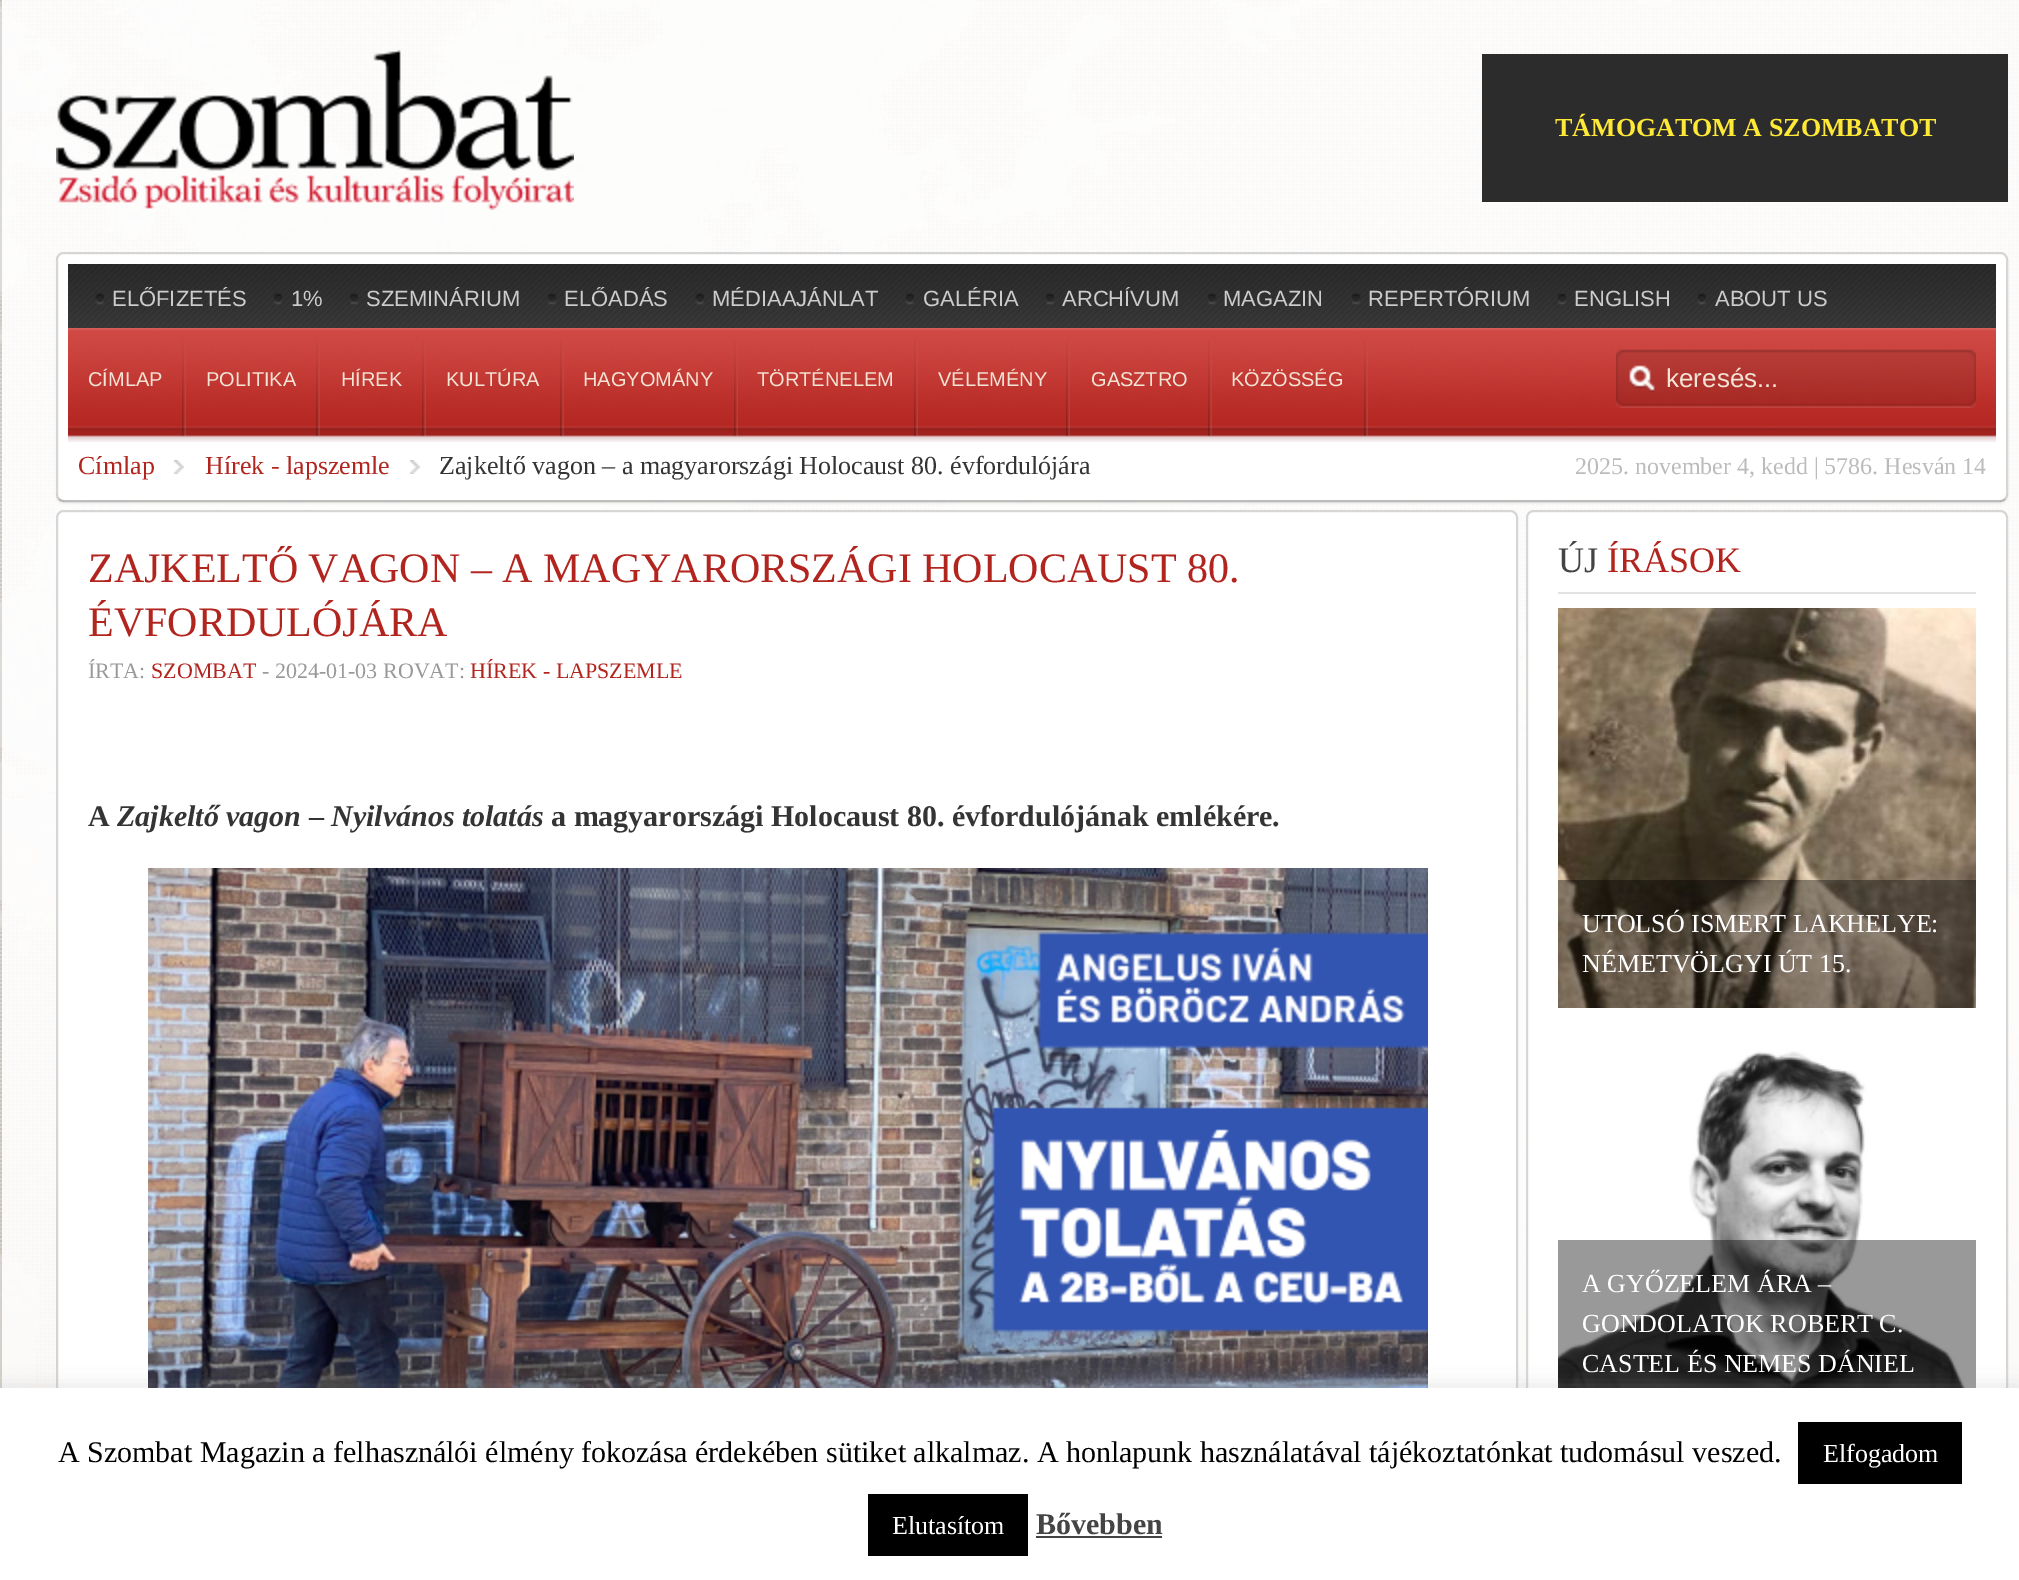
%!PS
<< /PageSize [2019 1580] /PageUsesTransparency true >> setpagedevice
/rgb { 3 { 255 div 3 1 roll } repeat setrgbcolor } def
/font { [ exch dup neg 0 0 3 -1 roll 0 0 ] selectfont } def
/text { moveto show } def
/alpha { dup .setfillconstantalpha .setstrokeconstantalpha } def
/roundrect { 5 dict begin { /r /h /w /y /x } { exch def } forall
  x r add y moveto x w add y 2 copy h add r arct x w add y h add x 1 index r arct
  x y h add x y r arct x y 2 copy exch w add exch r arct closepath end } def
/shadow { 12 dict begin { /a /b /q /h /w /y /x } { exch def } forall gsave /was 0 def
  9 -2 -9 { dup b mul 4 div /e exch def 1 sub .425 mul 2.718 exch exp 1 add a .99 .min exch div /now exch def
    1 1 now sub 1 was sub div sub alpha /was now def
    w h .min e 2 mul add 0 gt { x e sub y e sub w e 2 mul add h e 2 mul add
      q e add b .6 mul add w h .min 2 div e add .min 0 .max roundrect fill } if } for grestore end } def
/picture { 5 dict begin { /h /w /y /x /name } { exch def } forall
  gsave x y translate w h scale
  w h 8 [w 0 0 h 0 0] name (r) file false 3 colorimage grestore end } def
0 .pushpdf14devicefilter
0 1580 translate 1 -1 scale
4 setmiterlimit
255 255 255 rgb
0 0 2019 1580 rectfill
(img_01.rgb) 0 0 2019 1388 picture
0.1 alpha
0 0 0 rgb
0 0 2 1388 rectfill
1 alpha
(img_02.rgb) 56 50 518 160 picture
44 44 44 rgb
1482 54 526 148 rectfill
gsave
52 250 moveto 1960 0 rlineto 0 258 rlineto -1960 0 rlineto closepath 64 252 moveto 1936 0 rlineto 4.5 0 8 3.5 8 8 rcurveto 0 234 rlineto 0 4.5 -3.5 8 -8 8 rcurveto -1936 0 rlineto -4.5 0 -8 -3.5 -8 -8 rcurveto 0 -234 rlineto 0 -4.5 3.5 -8 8 -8 rcurveto closepath eoclip newpath
0 0 0 rgb
56 254 1952 250 8 1 0.06 shadow
grestore
255 255 255 rgb
58 254 1948 246 6 roundrect fill
0.25 alpha
0 0 0 rgb
2 setlinewidth
2005 499 moveto -1.5 1.5 -3 2 -5 2 rcurveto -1936 0 rlineto -2 0 -3.5 -0.5 -5 -2 rcurveto stroke
0.15 alpha
59 499 moveto -1.5 -1.5 -2 -3 -2 -5 rcurveto 0 -234 rlineto 0 -2 0.5 -3.5 2 -5 rcurveto 1.5 -1.5 3 -2 5 -2 rcurveto 1936 0 rlineto 2 0 3.5 0.5 5 2 rcurveto 1.5 1.5 2 3 2 5 rcurveto 0 234 rlineto 0 2 -0.5 3.5 -2 5 rcurveto stroke
1 alpha
(img_03.rgb) 68 264 1928 64 picture
(img_04.rgb) 95 293 9 12 picture
(img_05.rgb) 273 293 9 12 picture
(img_06.rgb) 350 293 9 12 picture
(img_07.rgb) 548 293 9 12 picture
(img_04.rgb) 695 293 9 12 picture
(img_08.rgb) 905 293 9 12 picture
(img_09.rgb) 1046 293 9 12 picture
(img_07.rgb) 1208 293 9 12 picture
(img_10.rgb) 1352 293 9 12 picture
(img_11.rgb) 1557 293 9 12 picture
(img_12.rgb) 1697 293 9 12 picture
(img_13.rgb) 68 328 1928 114 picture
(img_14.rgb) 182 341 4 95 picture
(img_15.rgb) 316 341 4 95 picture
(img_16.rgb) 422 341 4 95 picture
(img_17.rgb) 560 341 4 95 picture
(img_18.rgb) 734 341 4 95 picture
(img_19.rgb) 914 341 4 95 picture
(img_20.rgb) 1066 341 4 95 picture
(img_21.rgb) 1208 341 4 95 picture
(img_22.rgb) 1364 341 4 95 picture
(img_23.rgb) 1616 349 360 59 picture
(img_24.rgb) 174 460 10 14 picture
(img_24.rgb) 410 460 10 14 picture
255 255 255 rgb
58 512 1458 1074 6 roundrect fill
0.15 alpha
0 0 0 rgb
59 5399 moveto -1.5 -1.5 -2 -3 -2 -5 rcurveto 0 -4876 rlineto 0 -2 0.5 -3.5 2 -5 rcurveto 1.5 -1.5 3 -2 5 -2 rcurveto 1446 0 rlineto 2 0 3.5 0.5 5 2 rcurveto 1.5 1.5 2 3 2 5 rcurveto 0 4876 rlineto 0 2 -0.5 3.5 -2 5 rcurveto stroke
1 alpha
(img_25.rgb) 148 868 1280 520 picture
255 255 255 rgb
1528 512 478 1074 6 roundrect fill
0.15 alpha
0 0 0 rgb
1529 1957 moveto -1.5 -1.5 -2 -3 -2 -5 rcurveto 0 -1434 rlineto 0 -2 0.5 -3.5 2 -5 rcurveto 1.5 -1.5 3 -2 5 -2 rcurveto 466 0 rlineto 2 0 3.5 0.5 5 2 rcurveto 1.5 1.5 2 3 2 5 rcurveto 0 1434 rlineto 0 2 -0.5 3.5 -2 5 rcurveto stroke
1 alpha
226 226 226 rgb
1558 592 418 2 rectfill
(img_26.rgb) 1558 608 418 400 picture
0.4 alpha
0 0 0 rgb
1558 880 418 128 rectfill
1 alpha
(img_27.rgb) 1558 1051 418 337 picture
0.4 alpha
1558 1240 418 148 rectfill
1 alpha
172 171 171 rgb
0 1386 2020 192 0 10 0.3 shadow
255 255 255 rgb
0 1388 2019 192 rectfill
0 0 0 rgb
1798 1422 164 62 rectfill
868 1494 160 62 rectfill
68 68 68 rgb
1036 1536 126 2 rectfill
/LiberationSerif-Bold 26 font
255 233 55 rgb
(TÁMOGATOM A SZOMBATOT) 1555 136 text
/LiberationSans-Regular 22 font
204 204 204 rgb
(ELŐFIZETÉS) 112 306 text
(1%) 291 306 text
(SZEMINÁRIUM) 366 306 text
(ELŐADÁS) 564 306 text
(MÉDIAAJÁNLAT) 712 306 text
(GALÉRIA) 923 306 text
(ARCHÍVUM) 1062 306 text
(MAGAZIN) 1223 306 text
(REPERTÓRIUM) 1368 306 text
(ENGLISH) 1574 306 text
(ABOUT US) 1715 306 text
/LiberationSans-Regular 20 font
244 228 213 rgb
(CÍMLAP) 88 386 text
(POLITIKA) 206 386 text
(HÍREK) 341 386 text
(KULTÚRA) 446 386 text
(HAGYOMÁNY) 583 386 text
(TÖRTÉNELEM) 757 386 text
(VÉLEMÉNY) 938 386 text
(GASZTRO) 1091 386 text
(KÖZÖSSÉG) 1231 386 text
/LiberationSans-Regular 26 font
(keresés...) 1666 387 text
/LiberationSerif-Regular 26 font
178 37 31 rgb
(Címlap) 78 474 text
(Hírek - lapszemle) 205 474 text
52 52 52 rgb
(Zajkeltő vagon – a magyarországi Holocaust 80. évfordulójára) 439 474 text
/LiberationSerif-Regular 24 font
187 187 187 rgb
(2025. november 4, kedd | 5786. Hesván 14) 1575 474 text
/LiberationSerif-Regular 42 font
178 37 31 rgb
(ZAJKELTŐ VAGON – A MAGYARORSZÁGI HOLOCAUST 80.) 88 582 text
(ÉVFORDULÓJÁRA) 88 636 text
/LiberationSerif-Regular 22 font
153 153 153 rgb
(ÍRTA:) 88 678 text
178 37 31 rgb
(SZOMBAT) 151 678 text
153 153 153 rgb
(- 2024-01-03 ROVAT:) 262 678 text
178 37 31 rgb
(HÍREK - LAPSZEMLE) 470 678 text
/LiberationSerif-Bold 30 font
52 52 52 rgb
(A) 88 826 text
/LiberationSerif-BoldItalic 30 font
(Zajkeltő vagon) 117 826 text
/LiberationSerif-Bold 30 font
(–) 309 826 text
/LiberationSerif-BoldItalic 30 font
(Nyilvános tolatás) 331 826 text
/LiberationSerif-Bold 30 font
(a magyarországi Holocaust 80. évfordulójának emlékére.) 551 826 text
/LiberationSerif-Regular 36 font
68 68 68 rgb
(ÚJ) 1558 572 text
178 37 31 rgb
(ÍRÁSOK) 1607 572 text
/LiberationSerif-Regular 26 font
255 255 255 rgb
(UTOLSÓ ISMERT LAKHELYE:) 1582 932 text
(NÉMETVÖLGYI ÚT 15.) 1582 972 text
(A GYŐZELEM ÁRA –) 1582 1292 text
(GONDOLATOK ROBERT C.) 1582 1332 text
(CASTEL ÉS NEMES DÁNIEL) 1582 1372 text
/LiberationSerif-Regular 30 font
0 0 0 rgb
(A Szombat Magazin a felhasználói élmény fokozása érdekében sütiket alkalmaz. A honlapunk használatával tájékoztatónkat tudomásul veszed.) 58 1462 text
/LiberationSerif-Regular 26 font
255 255 255 rgb
(Elfogadom) 1823 1462 text
(Elutasítom) 892 1534 text
/LiberationSerif-Bold 30 font
68 68 68 rgb
(Bővebben) 1036 1534 text
.poppdf14devicefilter showpage
